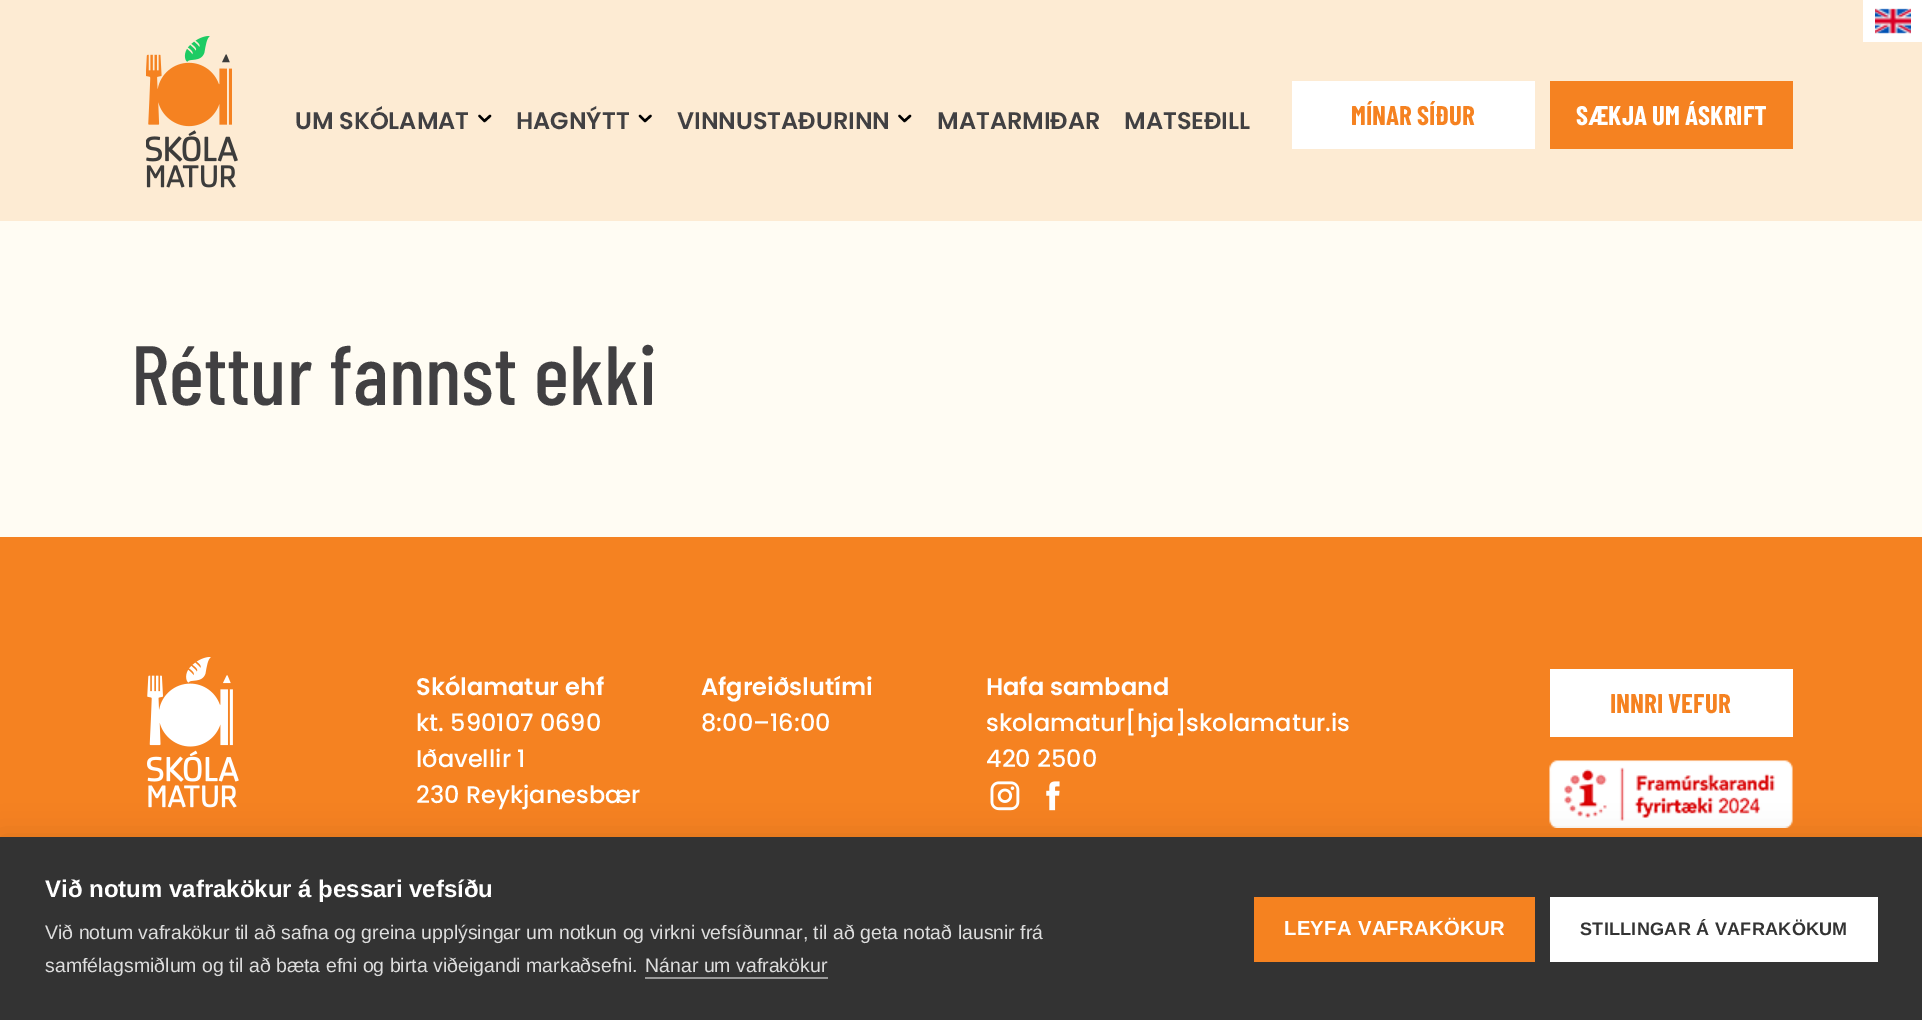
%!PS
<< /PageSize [1922 1020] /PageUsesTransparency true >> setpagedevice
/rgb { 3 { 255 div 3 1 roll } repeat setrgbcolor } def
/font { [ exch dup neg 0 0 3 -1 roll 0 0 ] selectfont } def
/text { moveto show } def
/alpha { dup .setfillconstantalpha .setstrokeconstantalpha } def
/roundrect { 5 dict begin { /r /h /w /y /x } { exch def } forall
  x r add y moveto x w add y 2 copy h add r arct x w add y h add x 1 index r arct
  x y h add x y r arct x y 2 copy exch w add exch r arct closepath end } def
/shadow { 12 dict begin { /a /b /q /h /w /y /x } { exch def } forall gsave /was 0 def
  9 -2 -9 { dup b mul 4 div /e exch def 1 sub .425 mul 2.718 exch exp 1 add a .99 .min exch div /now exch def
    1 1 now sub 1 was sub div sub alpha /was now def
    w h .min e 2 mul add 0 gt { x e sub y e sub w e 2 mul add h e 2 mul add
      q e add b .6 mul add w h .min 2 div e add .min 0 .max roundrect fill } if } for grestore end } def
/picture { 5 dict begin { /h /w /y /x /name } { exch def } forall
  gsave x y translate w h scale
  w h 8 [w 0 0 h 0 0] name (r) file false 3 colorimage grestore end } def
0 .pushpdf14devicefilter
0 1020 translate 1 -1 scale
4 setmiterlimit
255 252 243 rgb
0 0 1922 1020 rectfill
253 235 211 rgb
0 0 1922 221 rectfill
(img_01.rgb) 146 36 92 152 picture
255 255 255 rgb
1863 0 59 42 rectfill
(img_02.rgb) 1875 8 36 26 picture
0 0 0 rgb
2.4 setlinewidth
1 setlinecap
1 setlinejoin
479.5 116 moveto 5 5 rlineto 5.5 -5 rlineto stroke
640 116 moveto 5 5 rlineto 5.5 -5 rlineto stroke
899.5 116 moveto 5 5 rlineto 5.5 -5 rlineto stroke
255 255 255 rgb
1292 81 243 68 rectfill
245 130 33 rgb
1550 81 243 68 rectfill
0 537 1922 300 rectfill
(img_03.rgb) 147 657 92 151 picture
(img_04.rgb) 990 781 30 30 picture
(img_05.rgb) 1046 781 14 30 picture
255 255 255 rgb
1550 669 243 68 rectfill
(img_06.rgb) 1549 760 244 68 picture
0 0 0 rgb
0 837 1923 183 0 15 0.1 shadow
51 51 51 rgb
0 837 1922 183 rectfill
153 153 153 rgb
645 977 183 2 rectfill
245 130 32 rgb
1254 897 281 65 rectfill
255 255 255 rgb
1550 897 328 65 rectfill
/Poppins-SemiBold 24 font
65 64 66 rgb
(UM SKÓLAMAT) 295 129 text
(HAGNÝTT) 516 129 text
(VINNUSTAÐURINN) 677 129 text
(MATARMIÐAR) 937 129 text
(MATSEÐILL) 1124 129 text
/BarlowCondensed-Bold 27 font
245 130 33 rgb
(MÍNAR SÍÐUR) 1351 125 text
255 255 255 rgb
(SÆKJA UM ÁSKRIFT) 1576 125 text
/BarlowCondensed-Medium 84 font
65 64 66 rgb
(Réttur fannst ekki) 131 405 text
/Poppins-SemiBold 24 font
255 255 255 rgb
(Skólamatur ehf) 416 695 text
/Poppins-Medium 24 font
(kt. 590107 0690) 416 731 text
(Iðavellir 1) 416 767 text
(230 Reykjanesbær) 416 803 text
/Poppins-SemiBold 24 font
(Afgreiðslutími) 701 695 text
/Poppins-Medium 24 font
(8:00–16:00) 701 731 text
/Poppins-SemiBold 24 font
(Hafa samband) 986 695 text
/Poppins-Medium 24 font
(skolamatur[hja]skolamatur.is) 986 731 text
(420 2500) 986 767 text
/BarlowCondensed-Bold 27 font
245 130 33 rgb
(INNRI VEFUR) 1610 713 text
/LiberationSans-Bold 24 font
255 255 255 rgb
(Við notum vafrakökur á þessari vefsíðu) 45 897 text
/LiberationSans-Regular 19.5 font
221 221 221 rgb
(Við notum vafrakökur til að safna og greina upplýsingar um notkun og virkni vefsíðunnar, til að geta notað lausnir frá) 45 939 text
(samfélagsmiðlum og til að bæta efni og birta viðeigandi markaðsefni.) 45 972 text
(Nánar um vafrakökur) 645 972 text
/LiberationSans-Bold 20.25 font
255 255 255 rgb
1284 935 moveto 0.3 0 (LEYFA VAFRAKÖKUR) ashow
/LiberationSans-Bold 18 font
51 51 51 rgb
1580 935 moveto 0.3 0 (STILLINGAR Á VAFRAKÖKUM) ashow
.poppdf14devicefilter showpage
